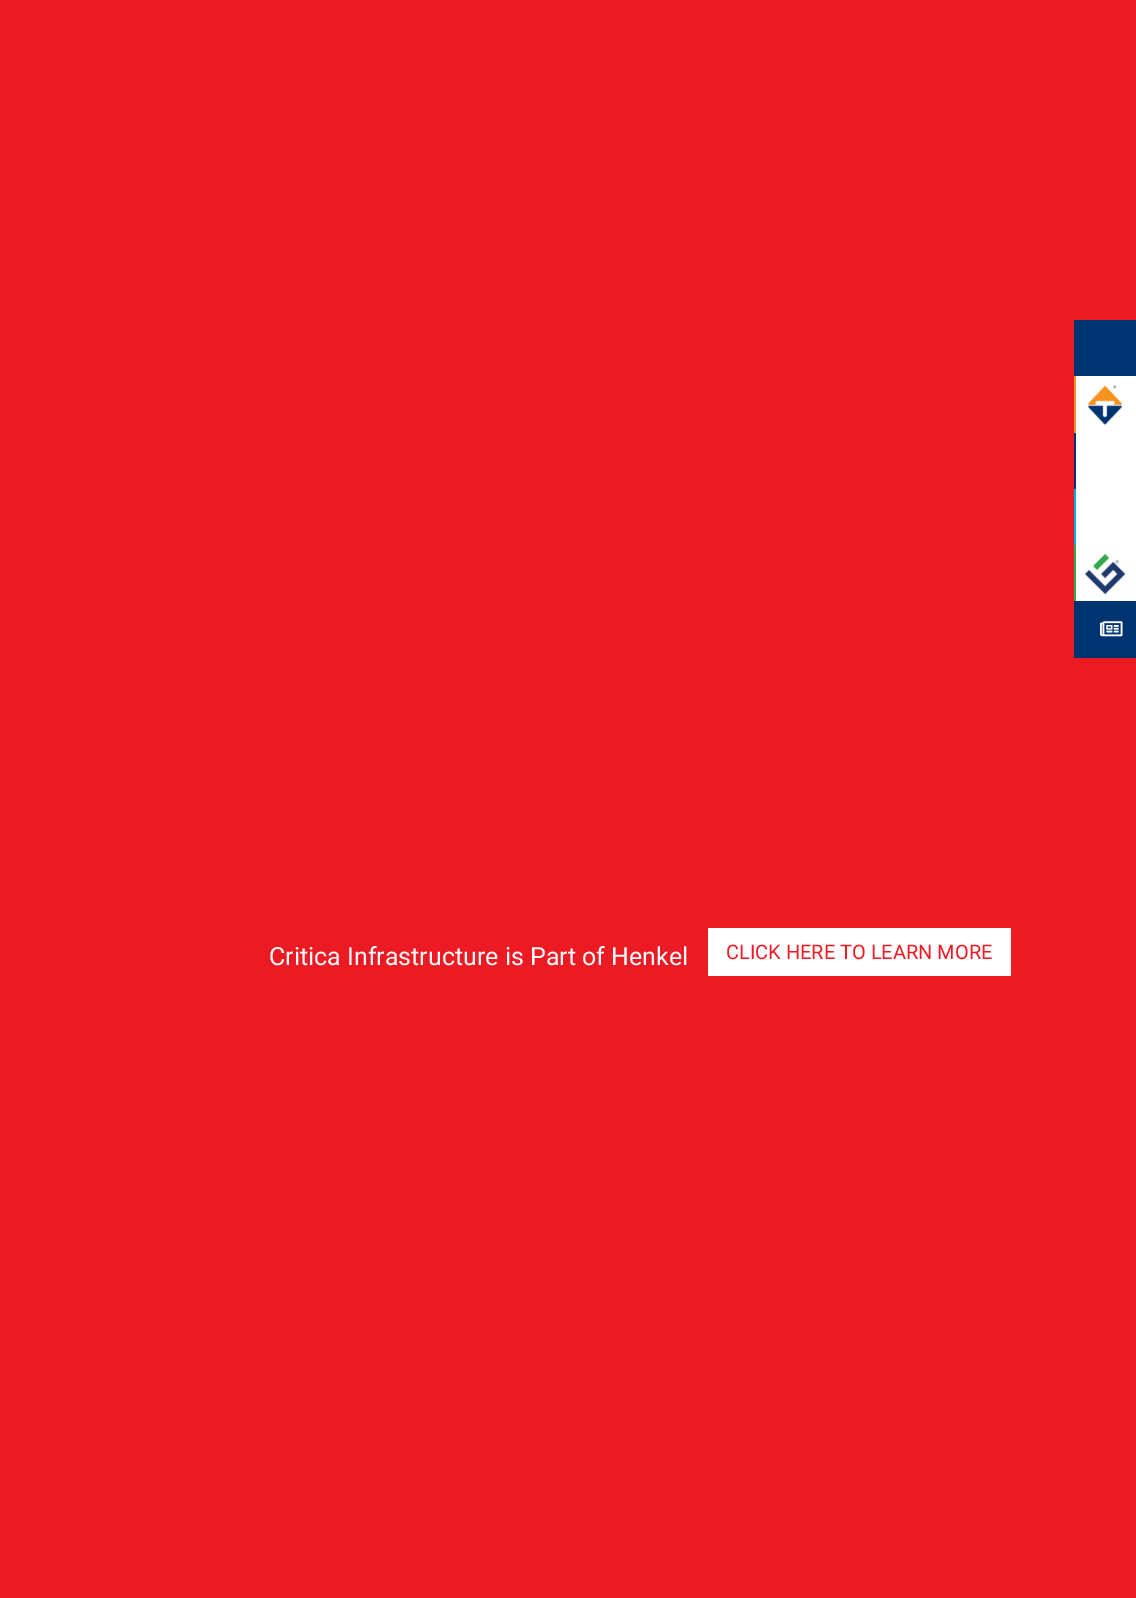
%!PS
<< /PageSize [1136 1598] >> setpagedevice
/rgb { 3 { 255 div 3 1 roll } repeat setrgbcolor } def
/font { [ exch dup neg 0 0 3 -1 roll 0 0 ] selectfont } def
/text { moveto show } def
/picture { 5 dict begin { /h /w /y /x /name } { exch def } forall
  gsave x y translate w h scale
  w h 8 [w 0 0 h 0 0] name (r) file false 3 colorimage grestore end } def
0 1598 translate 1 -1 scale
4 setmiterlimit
236 27 35 rgb
0 0 1136 1598 rectfill
0 52 113 rgb
1074 320 62 56 rectfill
246 146 30 rgb
1074 376 2 57 rectfill
255 255 255 rgb
1076 376 60 225 rectfill
(img_01.rgb) 1088 384 34 41 picture
0 52 113 rgb
1074 433 2 56 rectfill
0 176 240 rgb
1074 489 2 56 rectfill
50 169 73 rgb
1074 545 2 56 rectfill
(img_02.rgb) 1085 553 41 42 picture
0 52 113 rgb
1074 601 62 57 rectfill
(img_03.rgb) 1100 621 23 16 picture
255 255 255 rgb
708 928 303 48 rectfill
/Roboto-Regular 25 font
(Critica Infrastructure is Part of Henkel) 269 965 text
/Roboto-Regular 20 font
236 27 35 rgb
(CLICK HERE TO LEARN MORE) 726 959 text
showpage
